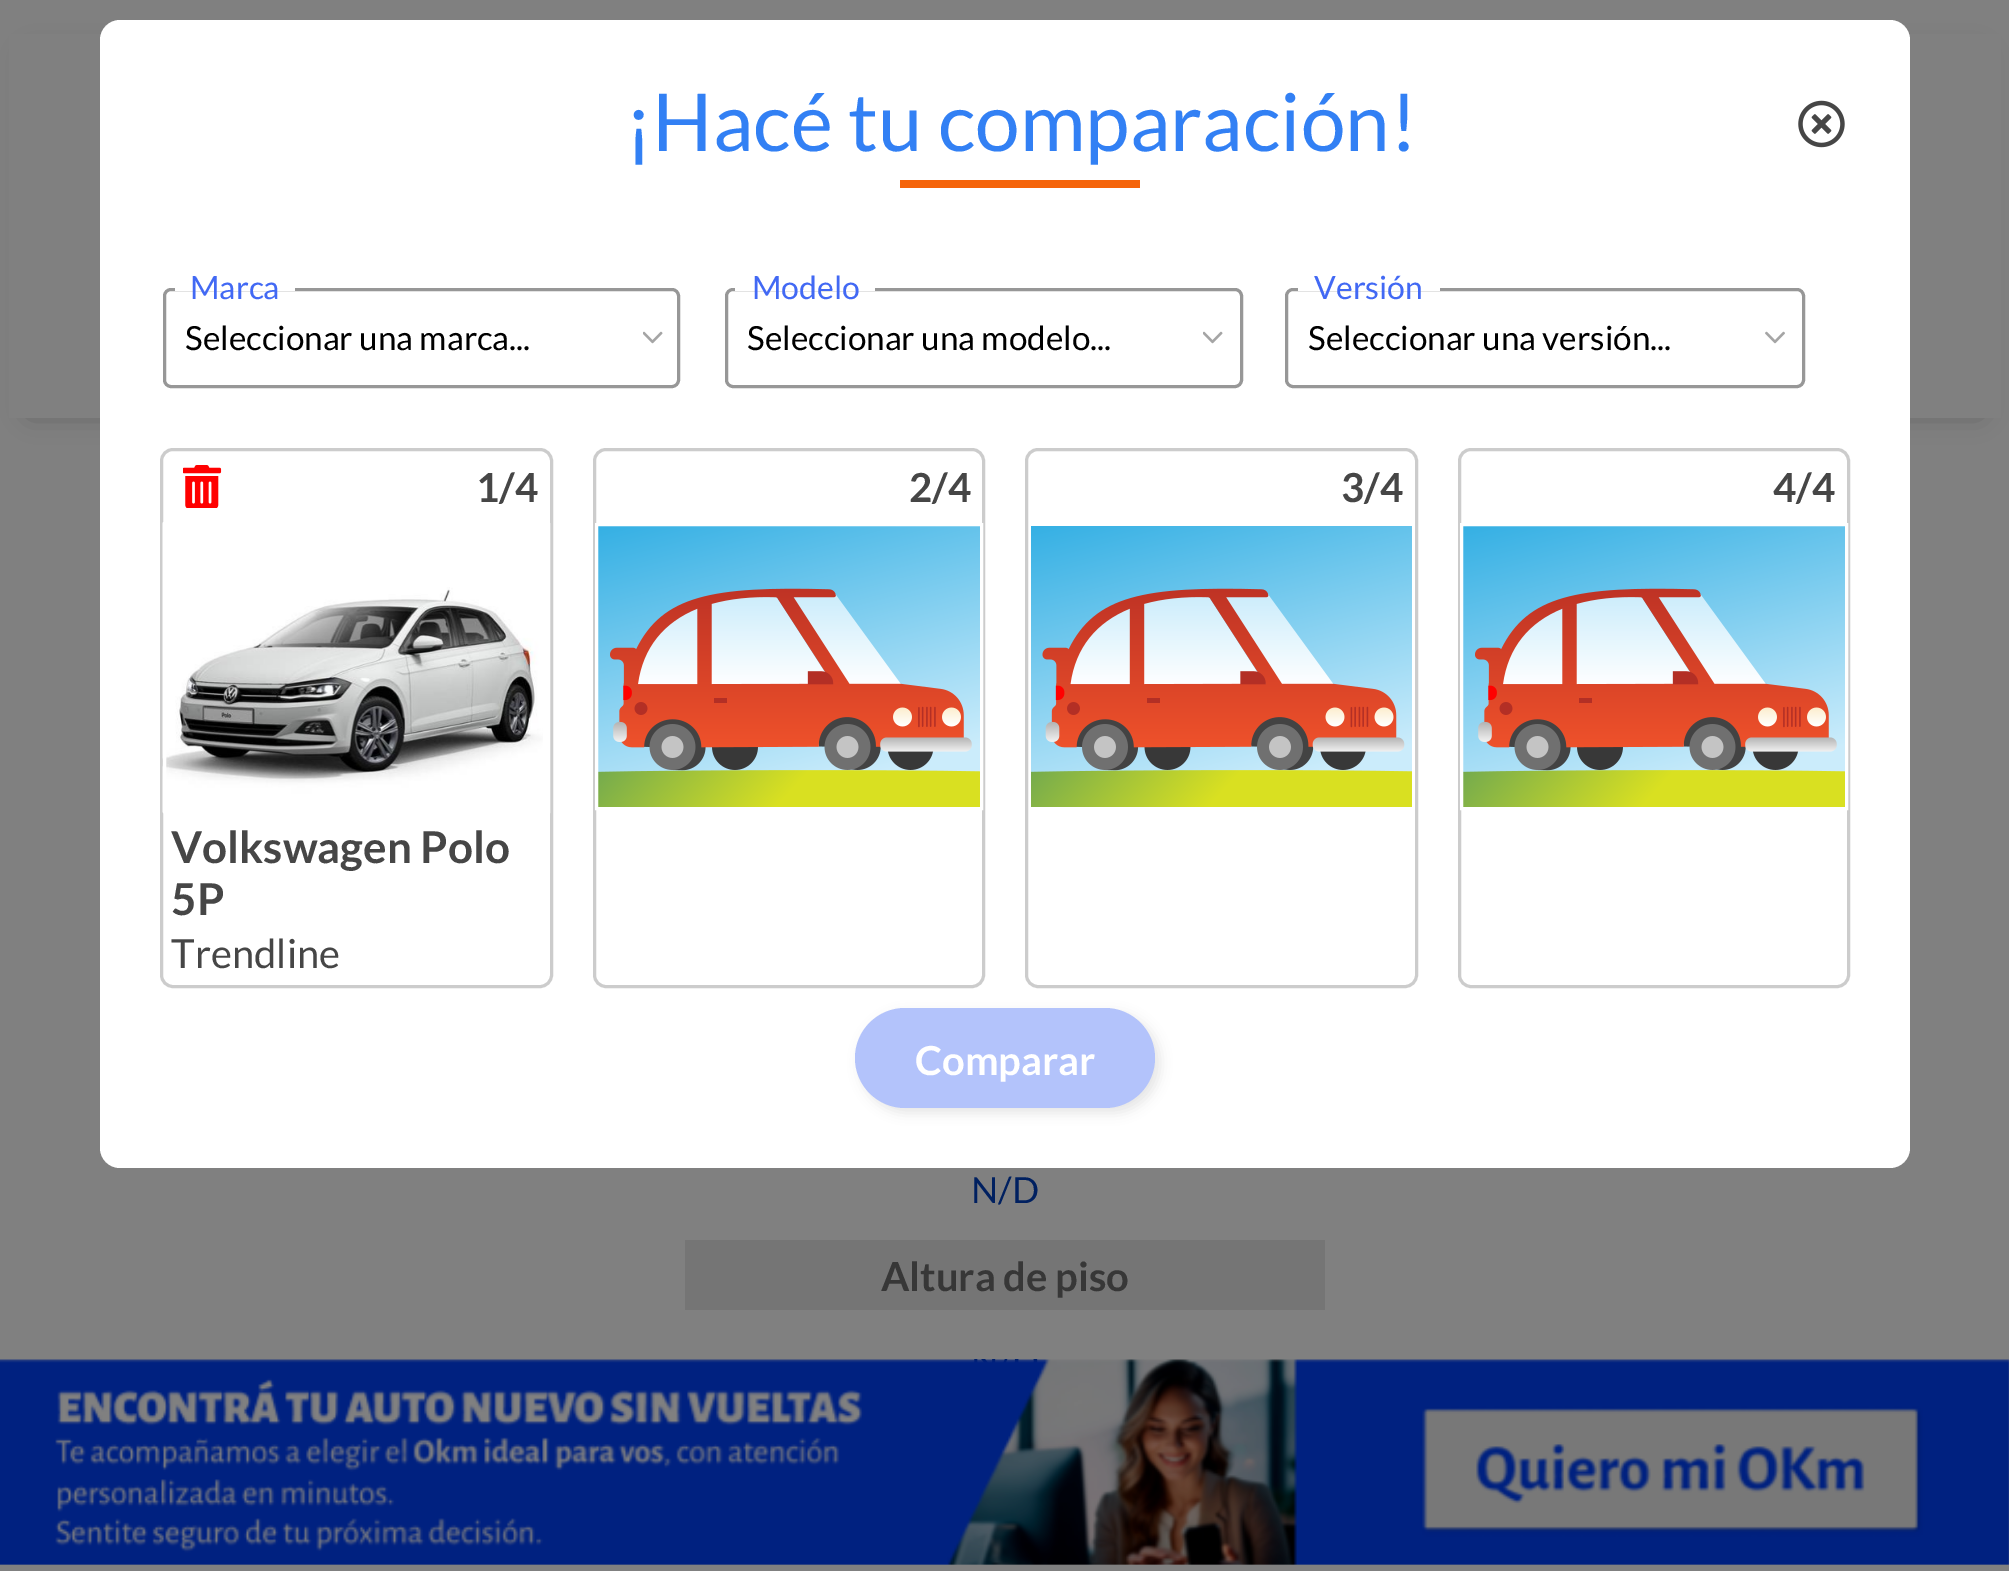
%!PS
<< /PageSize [2009 1571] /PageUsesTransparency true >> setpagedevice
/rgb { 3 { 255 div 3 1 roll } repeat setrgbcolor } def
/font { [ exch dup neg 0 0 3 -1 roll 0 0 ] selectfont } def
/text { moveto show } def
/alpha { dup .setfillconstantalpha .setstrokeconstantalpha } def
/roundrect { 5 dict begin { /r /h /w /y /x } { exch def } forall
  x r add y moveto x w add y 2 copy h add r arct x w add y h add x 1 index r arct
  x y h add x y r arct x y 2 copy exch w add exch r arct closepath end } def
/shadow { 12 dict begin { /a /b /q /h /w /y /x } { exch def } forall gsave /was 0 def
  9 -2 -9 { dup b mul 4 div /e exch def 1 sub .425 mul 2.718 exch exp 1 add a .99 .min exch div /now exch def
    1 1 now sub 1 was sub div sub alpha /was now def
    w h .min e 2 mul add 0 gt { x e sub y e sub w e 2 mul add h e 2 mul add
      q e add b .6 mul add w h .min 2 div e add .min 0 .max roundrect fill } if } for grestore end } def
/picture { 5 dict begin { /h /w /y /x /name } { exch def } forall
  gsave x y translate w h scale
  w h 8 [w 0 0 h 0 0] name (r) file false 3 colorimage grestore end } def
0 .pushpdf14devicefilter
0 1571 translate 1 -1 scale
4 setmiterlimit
128 128 128 rgb
0 0 2009 1571 rectfill
0 0 0 rgb
30 55 1950 358 0 14 0.3 shadow
128 128 128 rgb
9 34 1992 384 rectfill
255 255 255 rgb
100 20 1810 1148 20 roundrect fill
245 100 10 rgb
900 180 240 8 rectfill
(img_01.rgb) 1798 100 47 48 picture
(img_02.rgb) 643 331 20 13 picture
151 151 151 rgb
3 setlinewidth
164.5 289.5 514 97 6.5 roundrect stroke
255 255 255 rgb
175 288 120 3 rectfill
(img_02.rgb) 1203 331 20 13 picture
151 151 151 rgb
726.5 289.5 515 97 6.5 roundrect stroke
255 255 255 rgb
735 288 140 3 rectfill
(img_03.rgb) 1765 331 20 13 picture
151 151 151 rgb
1286.5 289.5 517 97 6.5 roundrect stroke
255 255 255 rgb
1298 288 142 3 rectfill
204 204 204 rgb
161.5 449.5 390 537 11.5 roundrect stroke
(img_04.rgb) 183 465 39 43 picture
(img_05.rgb) 162 522 381 291 picture
255 255 255 rgb
164.5 524.5 384 287 rectstroke
204 204 204 rgb
594.5 449.5 389 537 11.5 roundrect stroke
(img_06.rgb) 598 526 382 281 picture
255 255 255 rgb
596.5 524.5 385 284 rectstroke
204 204 204 rgb
1026.5 449.5 390 537 11.5 roundrect stroke
(img_07.rgb) 1031 526 381 281 picture
1459.5 449.5 389 537 11.5 roundrect stroke
(img_06.rgb) 1463 526 382 281 picture
255 255 255 rgb
1461.5 524.5 385 284 rectstroke
153 153 153 rgb
860 1013 300 100 50 6 0.25 shadow
179 195 251 rgb
855 1008 300 100 50 roundrect fill
117 117 117 rgb
685 1240 640 70 rectfill
(img_08.rgb) 0 1359 2009 206 picture
/Lato-Regular 80 font
50 128 244 rgb
(¡Hacé tu comparación!) 625 151 text
/Lato-Regular 32 font
66 105 244 rgb
(Marca) 190 299 text
/Lato-Regular 33.25 font
0 0 0 rgb
(Seleccionar una marca...) 185 350 text
/Lato-Regular 32 font
66 105 244 rgb
(Modelo) 752 299 text
/Lato-Regular 33.25 font
0 0 0 rgb
(Seleccionar una modelo...) 747 350 text
/Lato-Regular 32 font
66 105 244 rgb
(Versión) 1314 299 text
/Lato-Regular 33.25 font
0 0 0 rgb
(Seleccionar una versión...) 1308 350 text
/Lato-Bold 40 font
70 70 70 rgb
(1/4) 476 502 text
/Lato-Bold 44 font
(Volkswagen Polo) 171 863 text
(5P) 171 915 text
/Lato-Regular 40 font
(Trendline) 171 968 text
/Lato-Bold 40 font
(2/4) 909 502 text
(3/4) 1341 502 text
(4/4) 1773 502 text
255 255 255 rgb
(Comparar) 915 1075 text
/Lato-Regular 36 font
0 32 96 rgb
(N/D) 971 1203 text
/Lato-Bold 40 font
55 55 55 rgb
(Altura de piso) 881 1291 text
.poppdf14devicefilter showpage
